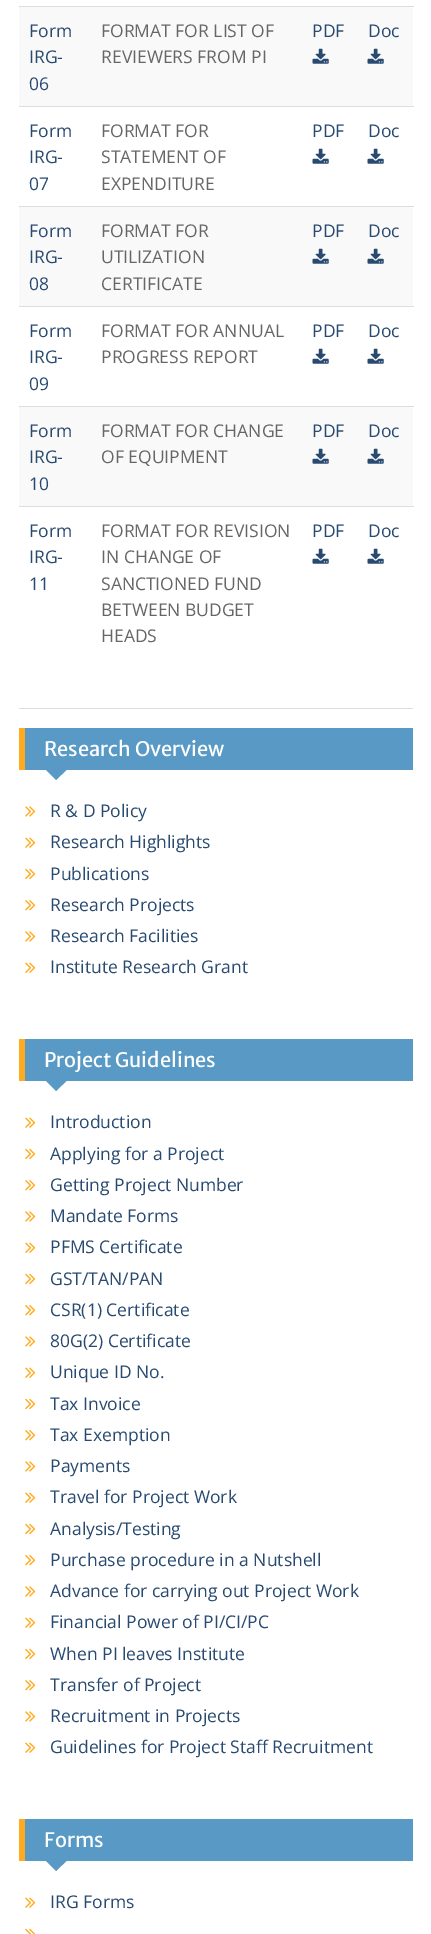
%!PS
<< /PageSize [431 1934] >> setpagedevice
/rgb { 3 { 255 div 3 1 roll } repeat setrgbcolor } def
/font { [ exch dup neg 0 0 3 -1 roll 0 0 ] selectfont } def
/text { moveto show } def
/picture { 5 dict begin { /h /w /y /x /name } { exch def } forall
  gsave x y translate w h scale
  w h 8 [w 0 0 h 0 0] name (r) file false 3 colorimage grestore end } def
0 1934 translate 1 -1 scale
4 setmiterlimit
255 255 255 rgb
0 0 431 1934 rectfill
221 221 221 rgb
19 708 394 1 rectfill
249 249 249 rgb
19 7 394 99 rectfill
(img_01.rgb) 312 48 17 16 picture
221 221 221 rgb
19 6 395 1 rectfill
(img_01.rgb) 367 48 17 16 picture
(img_02.rgb) 312 148 17 16 picture
19 106 395 1 rectfill
(img_02.rgb) 367 148 17 16 picture
249 249 249 rgb
19 207 394 99 rectfill
(img_01.rgb) 312 248 17 16 picture
221 221 221 rgb
19 206 395 1 rectfill
(img_01.rgb) 367 248 17 16 picture
(img_02.rgb) 312 348 17 16 picture
19 306 395 1 rectfill
(img_02.rgb) 367 348 17 16 picture
249 249 249 rgb
19 407 394 99 rectfill
(img_01.rgb) 312 448 17 16 picture
221 221 221 rgb
19 406 395 1 rectfill
(img_01.rgb) 367 448 17 16 picture
(img_02.rgb) 312 548 17 16 picture
19 506 395 1 rectfill
(img_02.rgb) 367 548 17 16 picture
88 154 197 rgb
25 728 388 42 rectfill
255 171 31 rgb
19 728 6 42 rectfill
88 154 197 rgb
45 769 moveto 22.5 0 rlineto -11.5 11 rlineto closepath fill
(img_03.rgb) 25 806 11 11 picture
(img_04.rgb) 25 837 11 11 picture
(img_05.rgb) 25 868 11 12 picture
(img_06.rgb) 25 900 11 11 picture
(img_03.rgb) 25 931 11 11 picture
(img_04.rgb) 25 962 11 11 picture
25 1039 388 42 rectfill
255 171 31 rgb
19 1039 6 42 rectfill
88 154 197 rgb
45 1080 moveto 22.5 0 rlineto -11.5 11 rlineto closepath fill
(img_04.rgb) 25 1117 11 11 picture
(img_05.rgb) 25 1148 11 12 picture
(img_06.rgb) 25 1180 11 11 picture
(img_03.rgb) 25 1211 11 11 picture
(img_04.rgb) 25 1242 11 11 picture
(img_05.rgb) 25 1273 11 12 picture
(img_06.rgb) 25 1305 11 11 picture
(img_03.rgb) 25 1336 11 11 picture
(img_04.rgb) 25 1367 11 11 picture
(img_05.rgb) 25 1398 11 12 picture
(img_06.rgb) 25 1430 11 11 picture
(img_03.rgb) 25 1461 11 11 picture
(img_04.rgb) 25 1492 11 11 picture
(img_05.rgb) 25 1523 11 12 picture
(img_06.rgb) 25 1555 11 11 picture
(img_03.rgb) 25 1586 11 11 picture
(img_04.rgb) 25 1617 11 11 picture
(img_05.rgb) 25 1648 11 12 picture
(img_06.rgb) 25 1680 11 11 picture
(img_03.rgb) 25 1711 11 11 picture
(img_04.rgb) 25 1742 11 11 picture
25 1819 388 42 rectfill
255 171 31 rgb
19 1819 6 42 rectfill
88 154 197 rgb
45 1860 moveto 22.5 0 rlineto -11.5 11 rlineto closepath fill
(img_04.rgb) 25 1897 11 11 picture
(img_07.rgb) 25 1928 11 6 picture
/OpenSans-Regular 17.5 font
41 74 112 rgb
(Form) 29 37 text
(IRG-) 29 63 text
(06) 29 90 text
102 102 102 rgb
(FORMAT FOR LIST OF) 101 37 text
(REVIEWERS FROM PI) 101 63 text
41 74 112 rgb
(PDF) 312 37 text
(Doc) 368 37 text
(Form) 29 137 text
(IRG-) 29 163 text
(07) 29 190 text
102 102 102 rgb
(FORMAT FOR) 101 137 text
(STATEMENT OF) 101 163 text
(EXPENDITURE) 101 190 text
41 74 112 rgb
(PDF) 312 137 text
(Doc) 368 137 text
(Form) 29 237 text
(IRG-) 29 263 text
(08) 29 290 text
102 102 102 rgb
(FORMAT FOR) 101 237 text
(UTILIZATION) 101 263 text
(CERTIFICATE) 101 290 text
41 74 112 rgb
(PDF) 312 237 text
(Doc) 368 237 text
(Form) 29 337 text
(IRG-) 29 363 text
(09) 29 390 text
102 102 102 rgb
(FORMAT FOR ANNUAL) 101 337 text
(PROGRESS REPORT) 101 363 text
41 74 112 rgb
(PDF) 312 337 text
(Doc) 368 337 text
(Form) 29 437 text
(IRG-) 29 463 text
(10) 29 490 text
102 102 102 rgb
(FORMAT FOR CHANGE) 101 437 text
(OF EQUIPMENT) 101 463 text
41 74 112 rgb
(PDF) 312 437 text
(Doc) 368 437 text
(Form) 29 537 text
(IRG-) 29 563 text
(11) 29 590 text
102 102 102 rgb
(FORMAT FOR REVISION) 101 537 text
(IN CHANGE OF) 101 563 text
(SANCTIONED FUND) 101 590 text
(BETWEEN BUDGET) 101 616 text
(HEADS) 101 642 text
41 74 112 rgb
(PDF) 312 537 text
(Doc) 368 537 text
/MerriweatherSans-Regular 20 font
255 255 255 rgb
(Research Overview) 44 756 text
/OpenSans-Regular 17.5 font
41 74 112 rgb
(R & D Policy) 50 817 text
(Research Highlights) 50 848 text
(Publications) 50 880 text
(Research Projects) 50 911 text
(Research Facilities) 50 942 text
(Institute Research Grant) 50 973 text
/MerriweatherSans-Regular 20 font
255 255 255 rgb
(Project Guidelines) 44 1067 text
/OpenSans-Regular 17.5 font
41 74 112 rgb
(Introduction) 50 1128 text
(Applying for a Project) 50 1160 text
(Getting Project Number) 50 1191 text
(Mandate Forms) 50 1222 text
(PFMS Certificate) 50 1253 text
(GST/TAN/PAN) 50 1285 text
(CSR\(1\) Certificate) 50 1316 text
(80G\(2\) Certificate) 50 1347 text
(Unique ID No.) 50 1378 text
(Tax Invoice) 50 1410 text
(Tax Exemption) 50 1441 text
(Payments) 50 1472 text
(Travel for Project Work) 50 1503 text
(Analysis/Testing) 50 1535 text
(Purchase procedure in a Nutshell) 50 1566 text
(Advance for carrying out Project Work) 50 1597 text
(Financial Power of PI/CI/PC) 50 1628 text
(When PI leaves Institute) 50 1660 text
(Transfer of Project) 50 1691 text
(Recruitment in Projects) 50 1722 text
(Guidelines for Project Staff Recruitment) 50 1753 text
/MerriweatherSans-Regular 20 font
255 255 255 rgb
(Forms) 44 1847 text
/OpenSans-Regular 17.5 font
41 74 112 rgb
(IRG Forms) 50 1908 text
showpage
